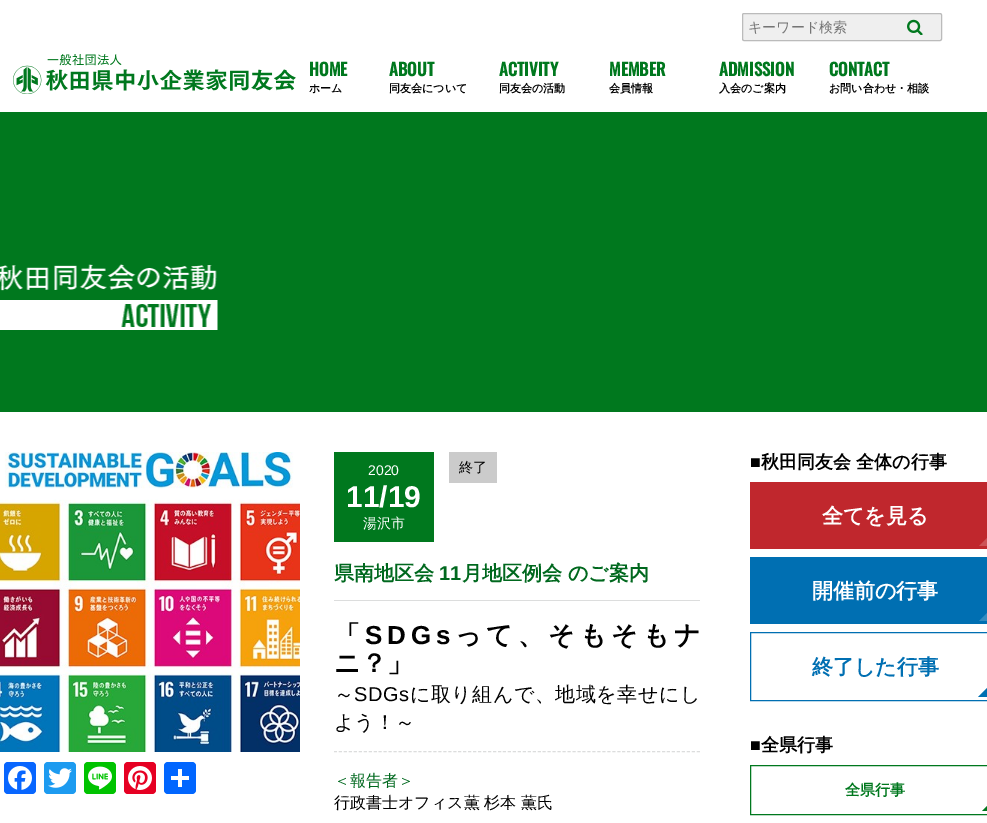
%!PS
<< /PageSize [987 823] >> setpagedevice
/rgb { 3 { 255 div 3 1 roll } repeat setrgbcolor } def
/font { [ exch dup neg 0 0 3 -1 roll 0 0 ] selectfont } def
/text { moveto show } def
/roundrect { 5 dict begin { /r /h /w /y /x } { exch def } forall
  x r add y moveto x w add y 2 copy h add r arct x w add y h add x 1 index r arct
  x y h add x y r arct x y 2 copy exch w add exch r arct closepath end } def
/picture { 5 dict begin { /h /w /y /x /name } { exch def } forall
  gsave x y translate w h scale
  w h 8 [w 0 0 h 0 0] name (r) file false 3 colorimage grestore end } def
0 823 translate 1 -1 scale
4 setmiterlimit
255 255 255 rgb
0 0 987 823 rectfill
239 239 239 rgb
742.5 13.5 199 27 1.5 roundrect gsave fill grestore
187 187 187 rgb
stroke
(img_01.rgb) 907 19 16 16 picture
(img_02.rgb) 13 54 283 40 picture
0 120 30 rgb
0 112 987 300 rectfill
(img_03.rgb) 0 264 218 66 picture
(img_04.rgb) 0 452 300 300 picture
334 452 100 90 rectfill
203 203 203 rgb
449 452 48 31 rectfill
220 221 221 rgb
334 600 366 1 rectfill
[3 1.97] 0 setdash
334 751.5 moveto 366 0 rlineto stroke
8 102 255 rgb
4 762 32 32 4 roundrect fill
(img_05.rgb) 8 766 24 24 picture
29 155 240 rgb
44 762 32 32 4 roundrect fill
(img_06.rgb) 48 768 24 20 picture
0 195 0 rgb
84 762 32 32 4 roundrect fill
(img_07.rgb) 88 766 24 24 picture
230 0 35 rgb
124 762 32 32 4 roundrect fill
(img_08.rgb) 128 766 24 24 picture
1 102 255 rgb
164 762 32 32 4 roundrect fill
255 255 255 rgb
178 769 4 18 rectfill
171 776 18 4 rectfill
192 39 45 rgb
750 482 237 67 rectfill
205 82 87 rgb
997 546 moveto -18 0 rlineto 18 -18 rlineto closepath fill
0 111 178 rgb
750 557 237 67 rectfill
51 140 193 rgb
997 621 moveto -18 0 rlineto 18 -18 rlineto closepath fill
0 111 178 rgb
[] 0 setdash
750.5 632.5 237 68 rectstroke
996 697 moveto -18 0 rlineto 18 -18 rlineto closepath fill
0 120 30 rgb
750.5 765.5 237 49 rectstroke
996 811 moveto -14 0 rlineto 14 -14 rlineto closepath fill
/WenQuanYiZenHei-Medium 14 font
117 117 117 rgb
(キーワード検索) 748 32 text
/Oswald-Bold 17 font
0 120 30 rgb
(HOME) 309 76 text
/WenQuanYiZenHei-Bold 11 font
0 0 0 rgb
(ホーム) 309 92 text
/Oswald-Bold 17 font
0 120 30 rgb
(ABOUT) 389 76 text
/WenQuanYiZenHei-Bold 11 font
0 0 0 rgb
(同友会について) 389 92 text
/Oswald-Bold 17 font
0 120 30 rgb
(ACTIVITY) 499 76 text
/WenQuanYiZenHei-Bold 11 font
0 0 0 rgb
(同友会の活動) 499 92 text
/Oswald-Bold 17 font
0 120 30 rgb
(MEMBER) 609 76 text
/WenQuanYiZenHei-Bold 11 font
0 0 0 rgb
(会員情報) 609 92 text
/Oswald-Bold 17 font
0 120 30 rgb
(ADMISSION) 719 76 text
/WenQuanYiZenHei-Bold 11 font
0 0 0 rgb
(入会のご案内) 719 92 text
/Oswald-Bold 17 font
0 120 30 rgb
(CONTACT) 829 76 text
/WenQuanYiZenHei-Bold 11 font
0 0 0 rgb
(お問い合わせ・相談) 829 92 text
/LiberationSans-Regular 14 font
255 255 255 rgb
(2020) 368 475 text
/LiberationSans-Bold 30 font
(11/19) 346 507 text
/WenQuanYiZenHei-Medium 14 font
(湯沢市) 363 528 text
0 0 0 rgb
(終了) 459 472 text
/WenQuanYiZenHei-Bold 20 font
0 104 30 rgb
(県南地区会) 334 580 text
/LiberationSans-Bold 20 font
(11) 439 580 text
/WenQuanYiZenHei-Bold 20 font
(月地区例会 のご案内) 462 580 text
/WenQuanYiZenHei-Bold 26 font
0 0 0 rgb
334 644 moveto 4.75 0 (「) ashow
/LiberationSans-Bold 26 font
365 644 moveto 4.75 0 (SDGs) ashow
/WenQuanYiZenHei-Bold 26 font
455 644 moveto 4.75 0 (って、そもそもナ) ashow
(ニ？」) 334 672 text
/WenQuanYiZenHei-Medium 20 font
334 701 moveto 0.5 0 (～) ashow
/LiberationSans-Regular 20 font
354 701 moveto 0.5 0 (SDGs) ashow
/WenQuanYiZenHei-Medium 20 font
410 701 moveto 0.5 0 (に取り組んで、地域を幸せにし) ashow
(よう！～) 334 729 text
/WenQuanYiZenHei-Medium 16 font
0 104 30 rgb
(＜報告者＞) 334 786 text
0 0 0 rgb
(行政書士オフィス薫 杉本 薫氏) 334 808 text
/LiberationSans-Bold 18 font
(■) 750 468 text
/WenQuanYiZenHei-Bold 18 font
(秋田同友会 全体の行事) 761 468 text
/WenQuanYiZenHei-Bold 21 font
255 255 255 rgb
(全てを見る) 822 523 text
(開催前の行事) 812 598 text
0 111 178 rgb
(終了した行事) 812 674 text
/LiberationSans-Bold 18 font
0 0 0 rgb
(■) 750 751 text
/WenQuanYiZenHei-Bold 18 font
(全県行事) 761 751 text
/WenQuanYiZenHei-Bold 15 font
0 120 30 rgb
(全県行事) 845 795 text
showpage
